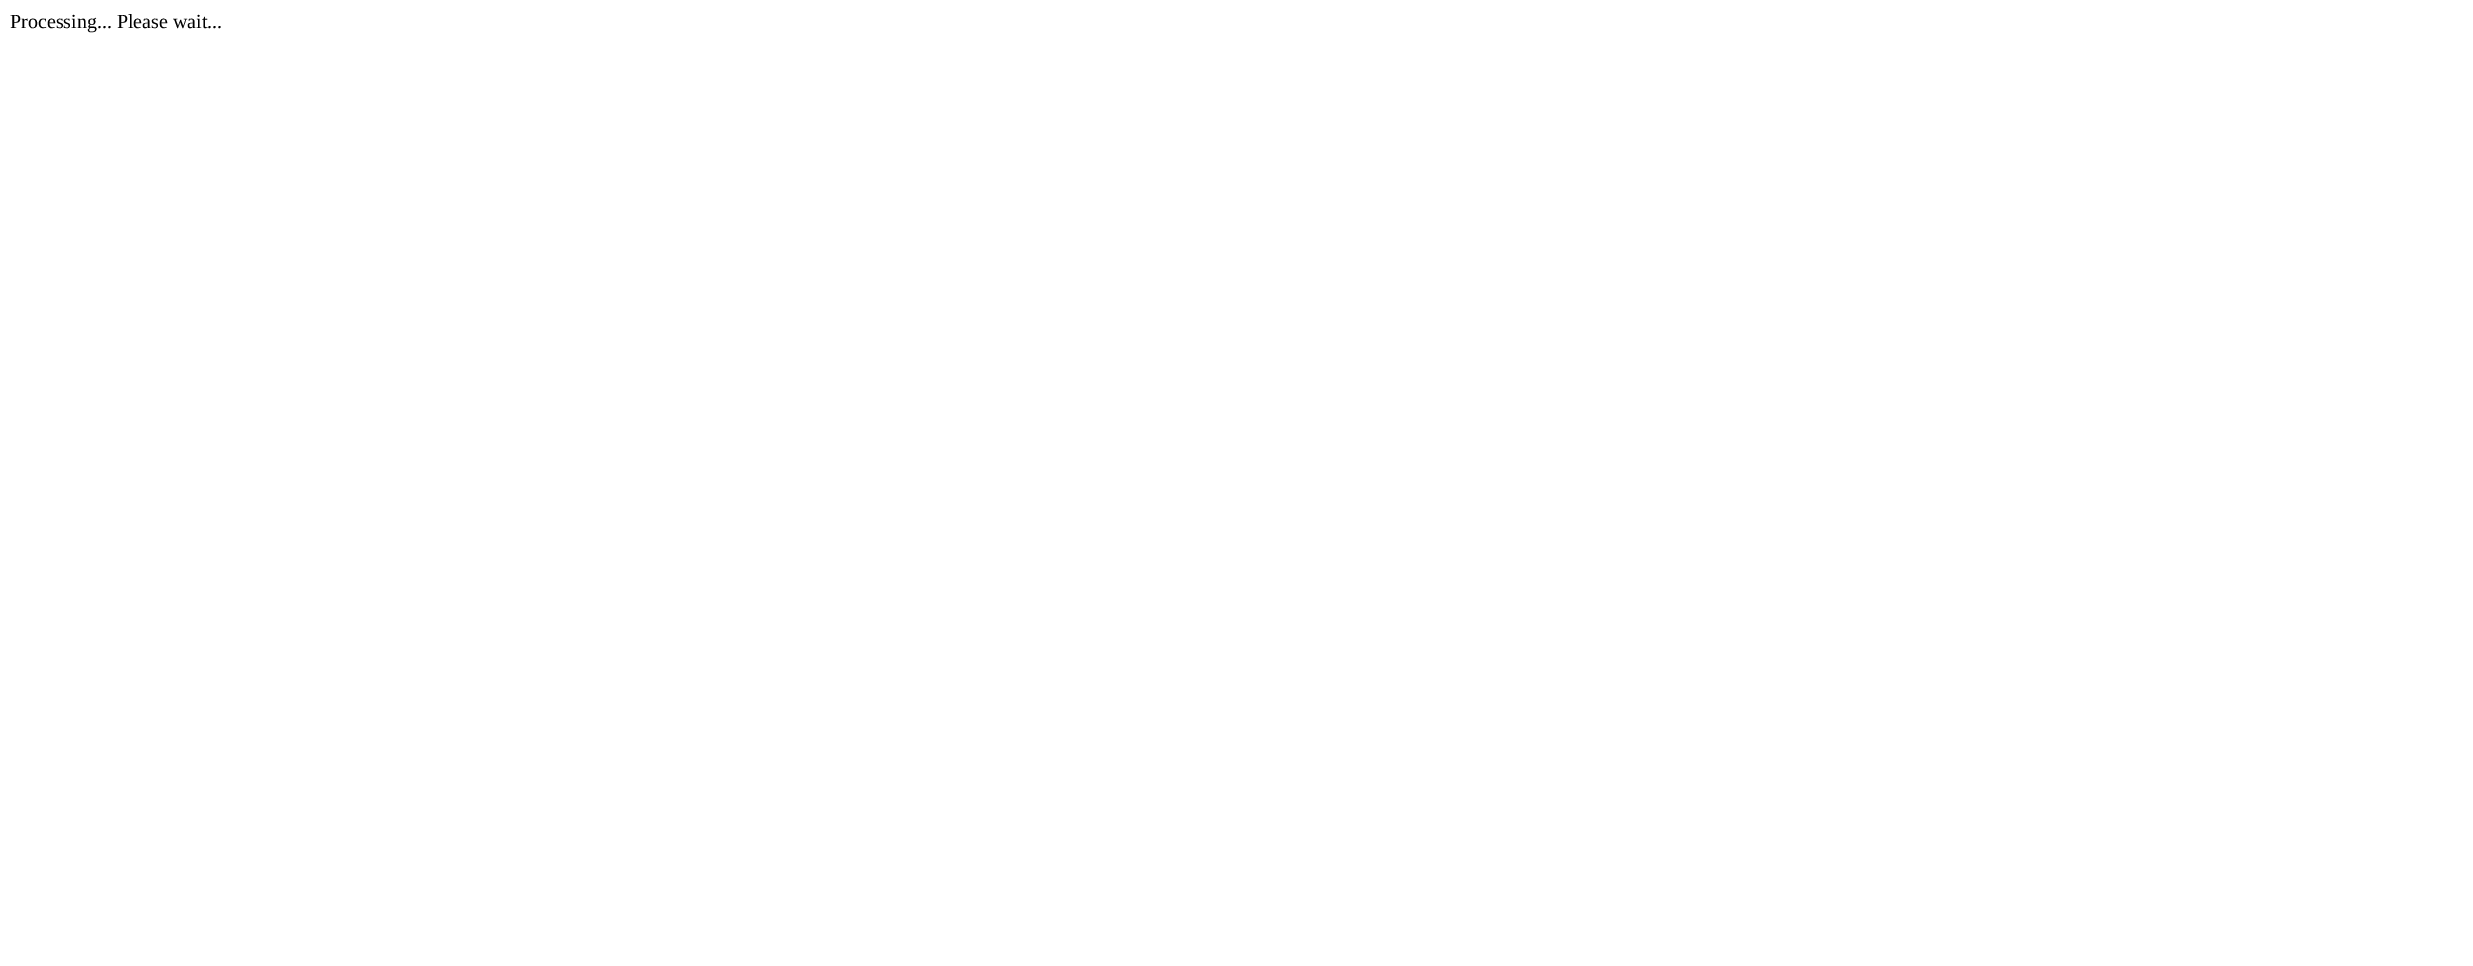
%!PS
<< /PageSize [2473 966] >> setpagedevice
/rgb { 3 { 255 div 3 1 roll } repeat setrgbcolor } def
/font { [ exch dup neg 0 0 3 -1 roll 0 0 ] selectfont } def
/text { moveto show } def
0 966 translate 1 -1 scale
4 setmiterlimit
255 255 255 rgb
0 0 2473 966 rectfill
/LiberationSerif-Regular 20 font
0 0 0 rgb
(Processing... Please wait...) 10 28 text
showpage
